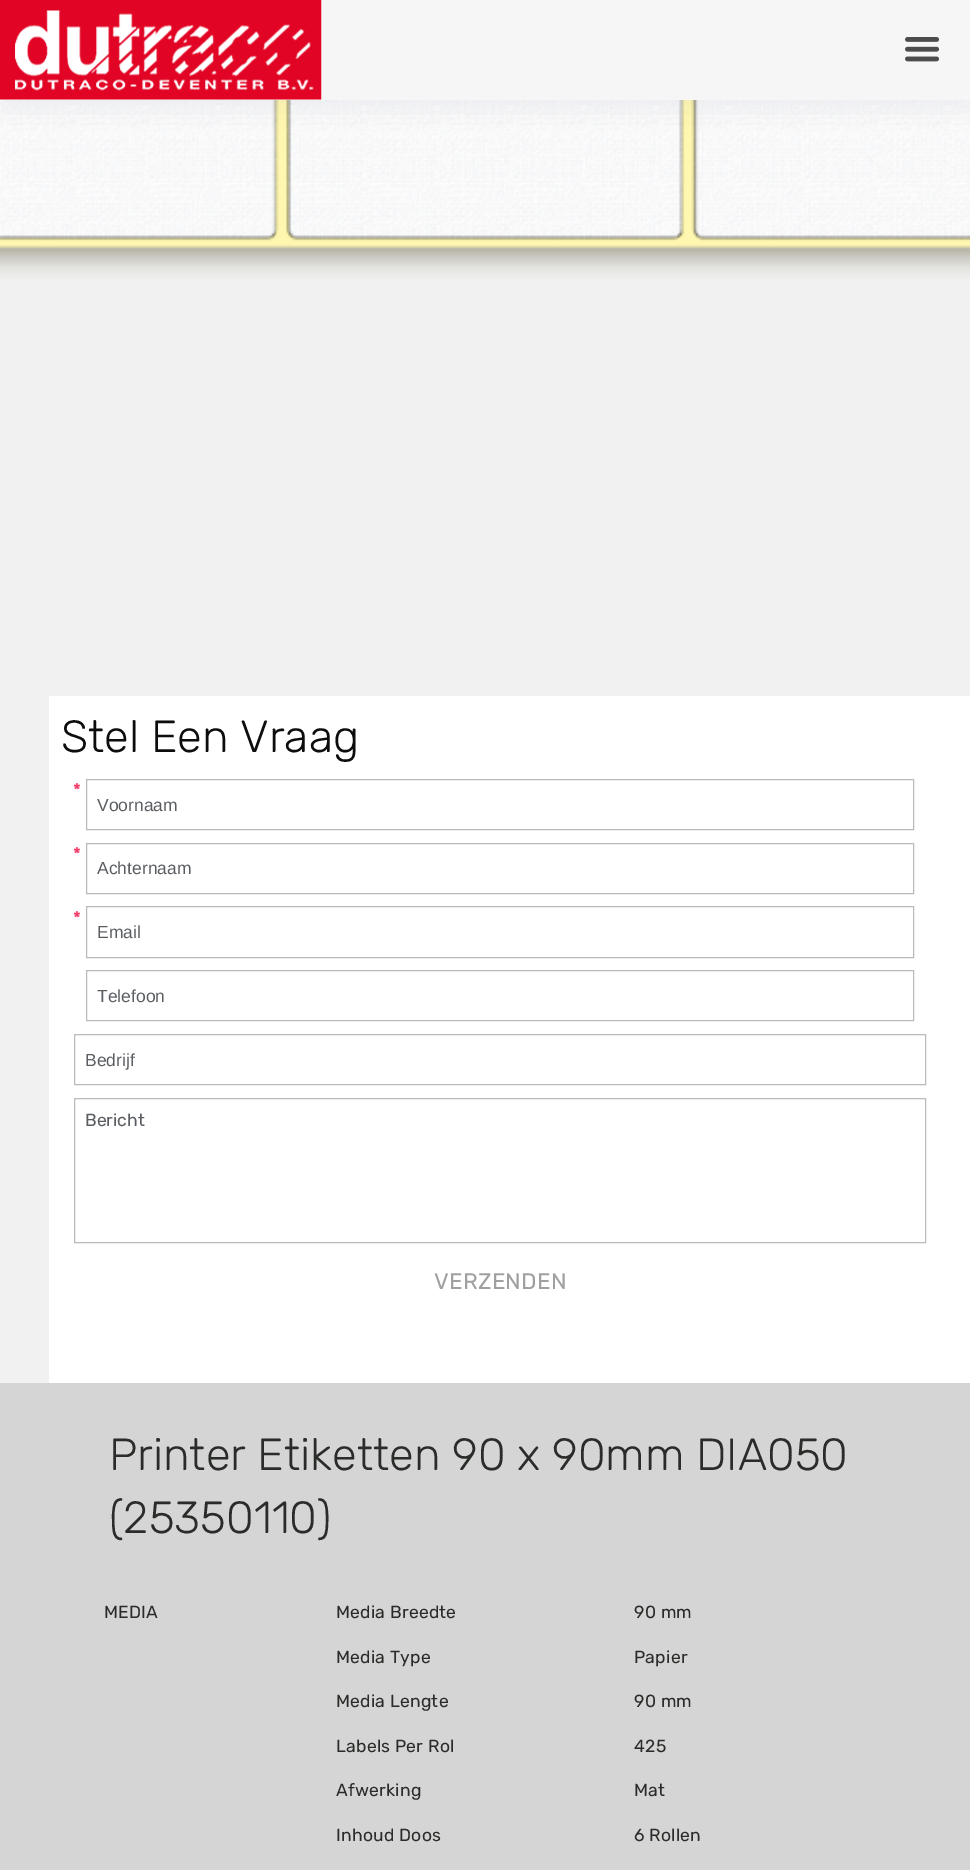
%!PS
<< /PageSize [970 1870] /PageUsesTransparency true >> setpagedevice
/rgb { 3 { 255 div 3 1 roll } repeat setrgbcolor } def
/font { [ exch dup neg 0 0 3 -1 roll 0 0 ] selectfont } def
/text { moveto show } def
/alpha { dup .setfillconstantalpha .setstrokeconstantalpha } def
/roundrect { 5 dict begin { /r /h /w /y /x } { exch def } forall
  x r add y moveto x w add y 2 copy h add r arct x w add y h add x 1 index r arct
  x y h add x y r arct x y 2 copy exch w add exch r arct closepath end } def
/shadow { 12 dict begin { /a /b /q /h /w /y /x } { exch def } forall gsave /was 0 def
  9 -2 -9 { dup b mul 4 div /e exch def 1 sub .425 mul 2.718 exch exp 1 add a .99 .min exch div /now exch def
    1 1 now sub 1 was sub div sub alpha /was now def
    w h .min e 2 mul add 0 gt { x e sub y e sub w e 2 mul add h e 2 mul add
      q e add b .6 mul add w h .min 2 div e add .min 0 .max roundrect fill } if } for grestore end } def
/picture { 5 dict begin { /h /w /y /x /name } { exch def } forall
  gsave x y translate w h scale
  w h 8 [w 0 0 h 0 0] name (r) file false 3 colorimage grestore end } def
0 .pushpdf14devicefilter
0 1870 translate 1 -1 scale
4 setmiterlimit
241 241 241 rgb
0 0 970 1870 rectfill
246 246 246 rgb
0 0 970 100 rectfill
(img_03.rgb) 0 100 970 179 picture
gsave
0 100 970 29 rectclip
128 138 157 rgb
0 10 970 100 0 20 0.12 shadow
grestore
(img_01.rgb) 0 0 322 100 picture
(img_02.rgb) 905 37 35 25 picture
255 255 255 rgb
49 696 921 687 rectfill
187 187 187 rgb
86.5 779.5 827 50 rectstroke
86.5 843.5 827 50 rectstroke
86.5 906.5 827 51 rectstroke
86.5 970.5 827 50 rectstroke
74.5 1034.5 851 50 rectstroke
74.5 1098.5 851 144 rectstroke
213 213 213 rgb
0 1383 970 487 rectfill
/Rubik-Light 45 font
13 13 13 rgb
(Stel Een Vraag) 61 752 text
/Rubik-SemiBold 17.5 font
240 60 105 rgb
73 796 moveto 0.25 0 (*) ashow
/LiberationSans-Regular 17.5 font
90 93 97 rgb
(Voornaam) 97 811 text
/Rubik-SemiBold 17.5 font
240 60 105 rgb
73 860 moveto 0.25 0 (*) ashow
/LiberationSans-Regular 17.5 font
90 93 97 rgb
(Achternaam) 97 874 text
/Rubik-SemiBold 17.5 font
240 60 105 rgb
73 924 moveto 0.25 0 (*) ashow
/LiberationSans-Regular 17.5 font
90 93 97 rgb
(Email) 97 938 text
(Telefoon) 97 1002 text
(Bedrijf) 85 1066 text
/Rubik-Regular 17.5 font
(Bericht) 85 1126 text
/Rubik-Regular 22.5 font
160 160 160 rgb
434 1289 moveto 0.25 0 (VERZENDEN) ashow
/Rubik-Light 45 font
41 44 40 rgb
(Printer Etiketten 90 x 90mm DIA050) 109 1470 text
(\(25350110\)) 109 1533 text
/Rubik-Regular 17.5 font
104 1618 moveto 0.25 0 (MEDIA) ashow
336 1618 moveto 0.25 0 (Media Breedte) ashow
634 1618 moveto 0.25 0 (90 mm) ashow
336 1663 moveto 0.25 0 (Media Type) ashow
634 1663 moveto 0.25 0 (Papier) ashow
336 1707 moveto 0.25 0 (Media Lengte) ashow
634 1707 moveto 0.25 0 (90 mm) ashow
336 1752 moveto 0.25 0 (Labels Per Rol) ashow
634 1752 moveto 0.25 0 (425) ashow
336 1796 moveto 0.25 0 (Afwerking) ashow
634 1796 moveto 0.25 0 (Mat) ashow
336 1841 moveto 0.25 0 (Inhoud Doos) ashow
634 1841 moveto 0.25 0 (6 Rollen) ashow
.poppdf14devicefilter showpage
